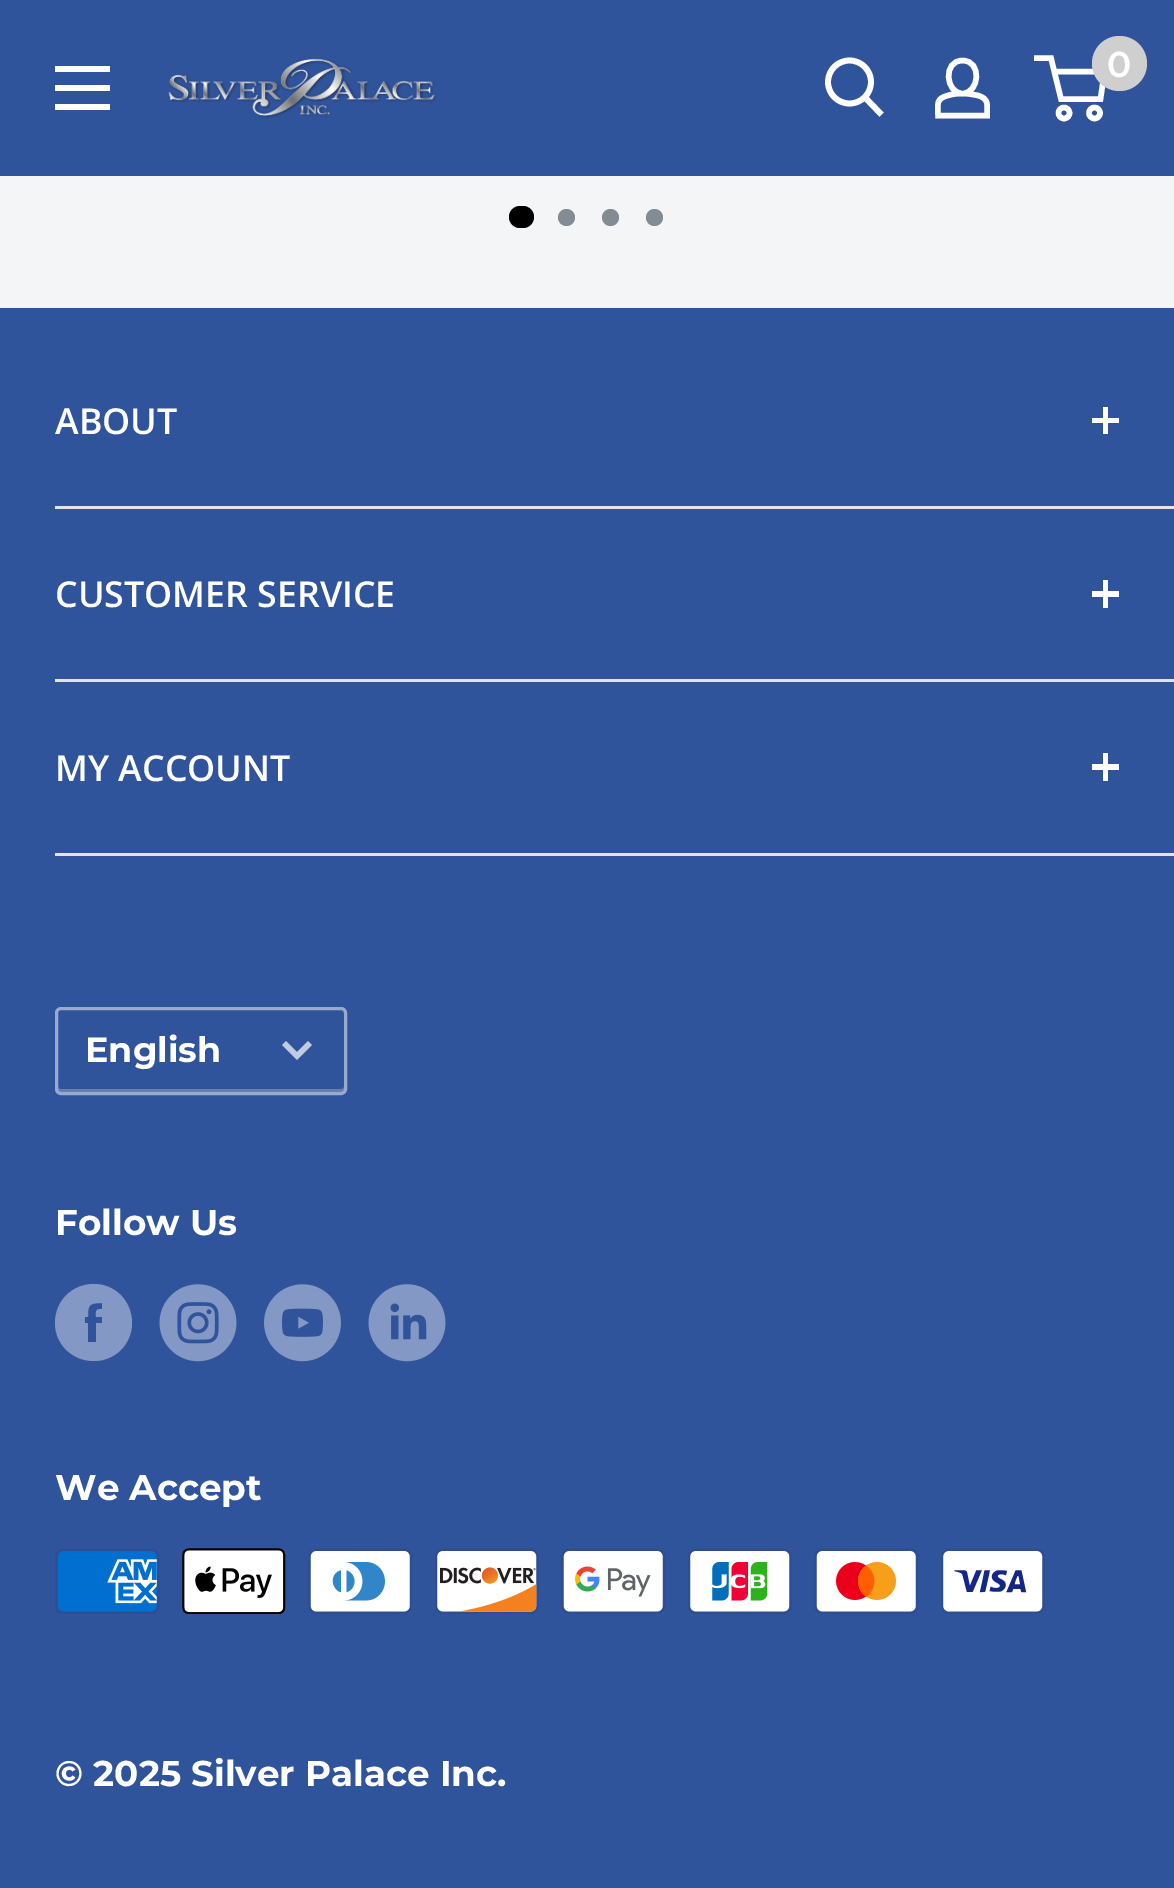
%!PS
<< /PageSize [1174 1888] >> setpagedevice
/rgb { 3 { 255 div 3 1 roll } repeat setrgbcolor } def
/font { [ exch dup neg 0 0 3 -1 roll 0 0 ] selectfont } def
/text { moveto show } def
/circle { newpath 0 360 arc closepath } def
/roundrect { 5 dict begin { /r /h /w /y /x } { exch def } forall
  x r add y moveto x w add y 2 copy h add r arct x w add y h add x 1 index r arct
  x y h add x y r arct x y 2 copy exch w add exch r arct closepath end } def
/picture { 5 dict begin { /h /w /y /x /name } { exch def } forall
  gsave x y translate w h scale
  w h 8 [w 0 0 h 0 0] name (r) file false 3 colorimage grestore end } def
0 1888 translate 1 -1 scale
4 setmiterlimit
243 245 246 rgb
0 0 1174 1888 rectfill
48 84 156 rgb
0 0 1174 176 rectfill
255 255 255 rgb
55 104 moveto 55 0 rlineto 0 6 rlineto -55 0 rlineto closepath 55 66 moveto 55 0 rlineto 0 6 rlineto -55 0 rlineto closepath 55 85 moveto 55 0 rlineto 0 6 rlineto -55 0 rlineto closepath eofill
(img_01.rgb) 168 57 269 62 picture
5.8 setlinewidth
2 setlinecap
879.5 112.5 moveto -14 -14.5 rlineto stroke
0 setlinecap
849.5 82 21.5 circle stroke
5.5 setlinewidth
962.5 93.5 moveto 5 0 10.5 1 15.5 2 rcurveto 11.5 3.5 9 9.5 9 20 rcurveto -49 0 rlineto 0 -11 -2.5 -17 10 -20 rcurveto 4.5 -1.5 9.5 -2 14.5 -2 rcurveto closepath 962.5 93.5 moveto -17 0 -20 -33 0 -33 rcurveto 20 0 17 33 0 33 rcurveto closepath stroke
1064 113 5.5 circle stroke
1094.5 113 5.5 circle stroke
1054 71.5 moveto 50.5 0 rlineto -4 27.5 rlineto -39.5 0 rlineto -10 -41 rlineto -17 0 rlineto stroke
207 207 207 rgb
1119.5 63.5 27.5 circle fill
0 0 0 rgb
509 206 25 22 11 roundrect fill
131 140 146 rgb
566.5 217.5 8.5 circle fill
610.5 217.5 8.5 circle fill
654.5 217.5 8.5 circle fill
48 84 156 rgb
0 308 1174 1580 rectfill
225 227 228 rgb
55 506 1119 3 rectfill
255 255 255 rgb
1103 407 5 27 rectfill
1092 418 27 5 rectfill
225 227 228 rgb
55 679 1119 3 rectfill
255 255 255 rgb
1103 580 5 28 rectfill
1092 591 27 6 rectfill
225 227 228 rgb
55 853 1119 3 rectfill
255 255 255 rgb
1103 753 5 28 rectfill
1092 764 27 6 rectfill
101 127 178 rgb
58 1086 moveto 0 2 0 5 2 6 rcurveto 282 0 rlineto 2 -1 2 -4 2 -6 rcurveto 0 2 -1 3 -3 3 rcurveto -281 0 rlineto -1 0 -2 -1 -2 -3 rcurveto closepath fill
152 170 206 rgb
3 setlinewidth
56.5 1008.5 289 85 4.5 roundrect stroke
193 204 225 rgb
5.5 setlinewidth
2 setlinecap
308 1045 moveto -11 11 rlineto -11 -11 rlineto stroke
131 152 196 rgb
94 1361 moveto -22 0 -39 -17 -39 -38 rcurveto 0 -22 17 -39 39 -39 rcurveto 21 0 38 17 38 39 rcurveto 0 21 -17 38 -38 38 rcurveto closepath 102 1317 moveto -6 0 rlineto 0 -6 -1 -8 6 -8 rcurveto 0 -6 rlineto -13 0 -14 2 -14 14 rcurveto -3 0 rlineto 0 6 rlineto 3 0 rlineto 0 19 rlineto 8 0 rlineto 0 -19 rlineto 6 0 rlineto closepath eofill
(img_02.rgb) 159 1284 78 78 picture
(img_03.rgb) 264 1284 77 78 picture
(img_04.rgb) 368 1284 78 78 picture
(img_05.rgb) 55 1548 105 66 picture
(img_06.rgb) 182 1548 104 66 picture
(img_07.rgb) 308 1548 105 66 picture
(img_08.rgb) 435 1548 104 66 picture
(img_09.rgb) 561 1548 105 66 picture
(img_10.rgb) 688 1548 104 66 picture
(img_11.rgb) 814 1548 105 66 picture
(img_12.rgb) 941 1548 104 66 picture
/Montserrat-SemiBold 36 font
255 255 255 rgb
(0) 1107 77 text
/OpenSans-SemiBold 35.75 font
(ABOUT) 55 434 text
(CUSTOMER SERVICE) 55 607 text
(MY ACCOUNT) 55 781 text
/Montserrat-Bold 35 font
(English) 85 1062 text
/Montserrat-Bold 35.75 font
(Follow Us) 55 1235 text
(We Accept) 55 1500 text
(© 2025 Silver Palace Inc.) 55 1786 text
showpage
